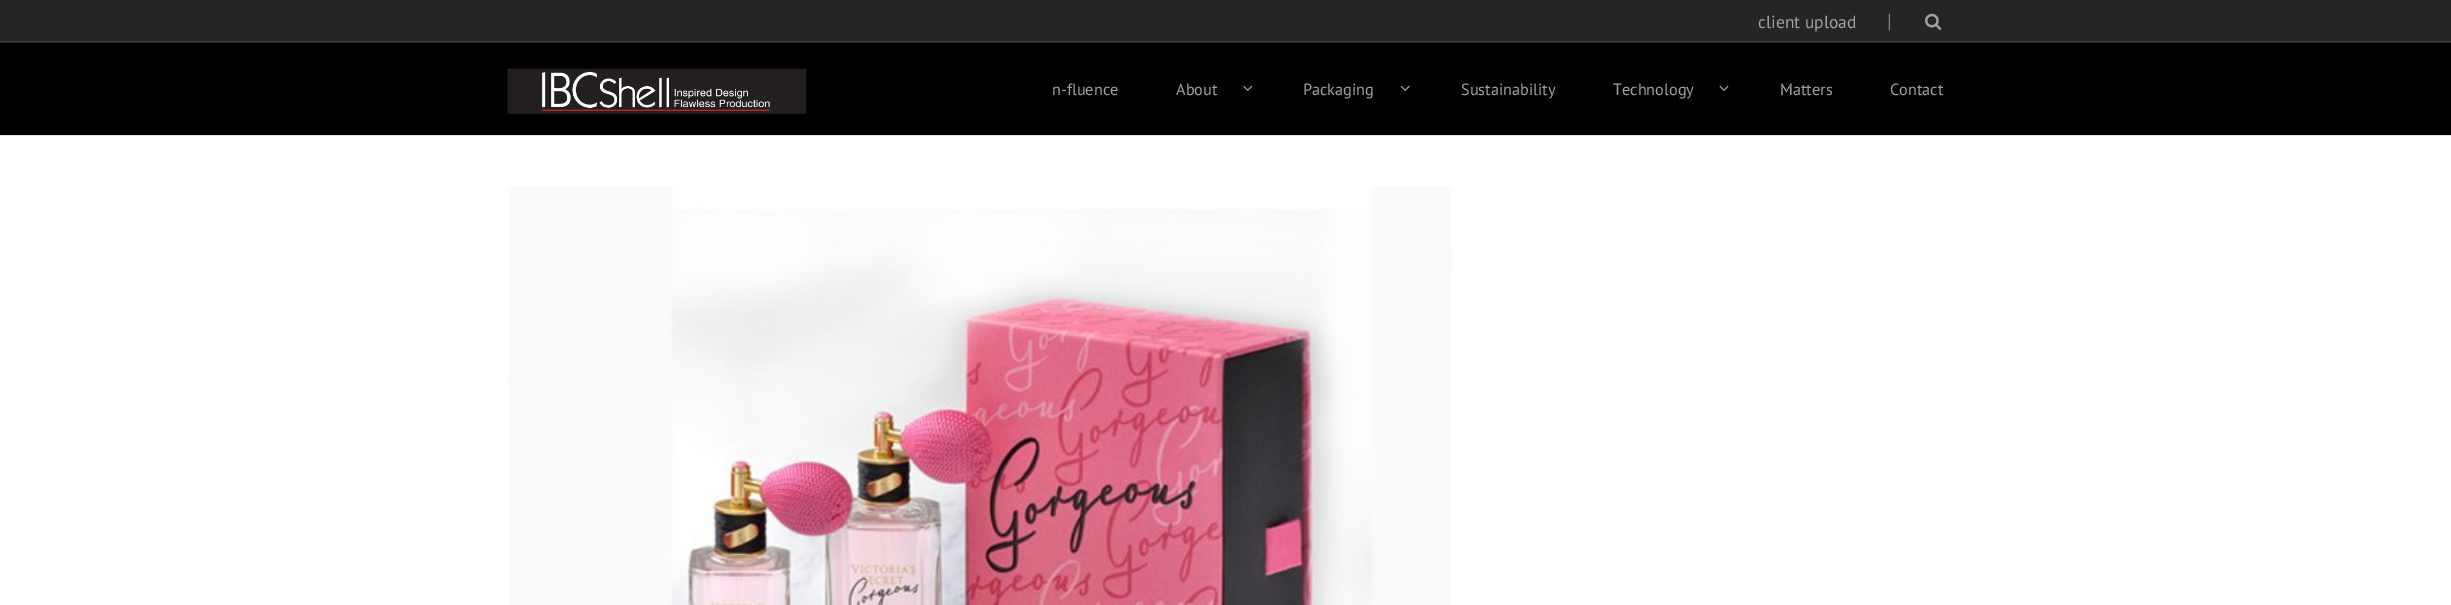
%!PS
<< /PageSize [2451 605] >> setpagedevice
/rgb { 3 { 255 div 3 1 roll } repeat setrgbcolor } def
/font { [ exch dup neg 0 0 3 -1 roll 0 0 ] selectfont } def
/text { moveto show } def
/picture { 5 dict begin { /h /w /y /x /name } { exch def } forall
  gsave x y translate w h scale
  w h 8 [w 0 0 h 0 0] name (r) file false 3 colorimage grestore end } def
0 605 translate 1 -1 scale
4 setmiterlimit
255 255 255 rgb
0 0 2451 605 rectfill
38 37 37 rgb
0 0 2451 43 rectfill
60 59 59 rgb
0 41 2451 1 rectfill
(img_01.rgb) 1925 13 17 17 picture
0 0 0 rgb
0 43 2451 92 rectfill
(img_02.rgb) 507 68 300 46 picture
(img_03.rgb) 1243 85 10 6 picture
(img_04.rgb) 1400 85 10 6 picture
(img_05.rgb) 1719 85 10 6 picture
229 229 229 rgb
0 135 2451 1 rectfill
(img_06.rgb) 508 186 944 419 picture
/PTSans-Regular 17.5 font
161 161 161 rgb
(client upload) 1758 28 text
/PTSans-Regular 20 font
131 131 131 rgb
(|) 1887 28 text
/PTSans-Regular 16.25 font
161 161 161 rgb
(n-fluence) 1052 95 text
(About) 1176 95 text
(Packaging) 1303 95 text
(Sustainability) 1461 95 text
(Technology) 1613 95 text
(Matters) 1780 95 text
(Contact) 1890 95 text
showpage
